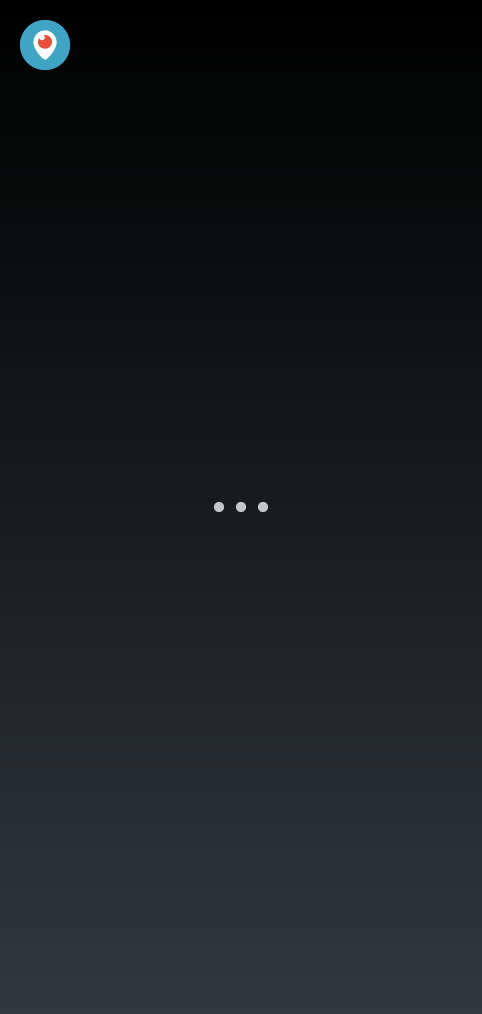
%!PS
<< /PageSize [482 1014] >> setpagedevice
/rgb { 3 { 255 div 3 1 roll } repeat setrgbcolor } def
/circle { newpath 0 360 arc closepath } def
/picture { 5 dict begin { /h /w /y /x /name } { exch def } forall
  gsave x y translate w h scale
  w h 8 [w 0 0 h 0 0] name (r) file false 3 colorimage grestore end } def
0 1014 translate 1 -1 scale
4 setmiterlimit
255 255 255 rgb
0 0 482 1014 rectfill
gsave 0 0 moveto 482 0 rlineto 0 1014 rlineto -482 0 rlineto closepath clip newpath
<< /ShadingType 2 /ColorSpace /DeviceRGB /Coords [241 0 241 1014] /Extend [true true] /Function << /FunctionType 2 /Domain [0 1] /C0 [0 0 0] /C1 [0.184 0.227 0.239] /N 1 >> >> shfill grestore
64 164 196 rgb
45 45 25 circle fill
(img_01.rgb) 33 30 24 30 picture
27 31 32 rgb
219 507 5.5 circle stroke
196 199 201 rgb
219 507 5 circle fill
27 31 32 rgb
241 507 5.5 circle stroke
196 199 201 rgb
241 507 5 circle fill
27 31 32 rgb
263 507 5.5 circle stroke
196 199 201 rgb
263 507 5 circle fill
showpage
